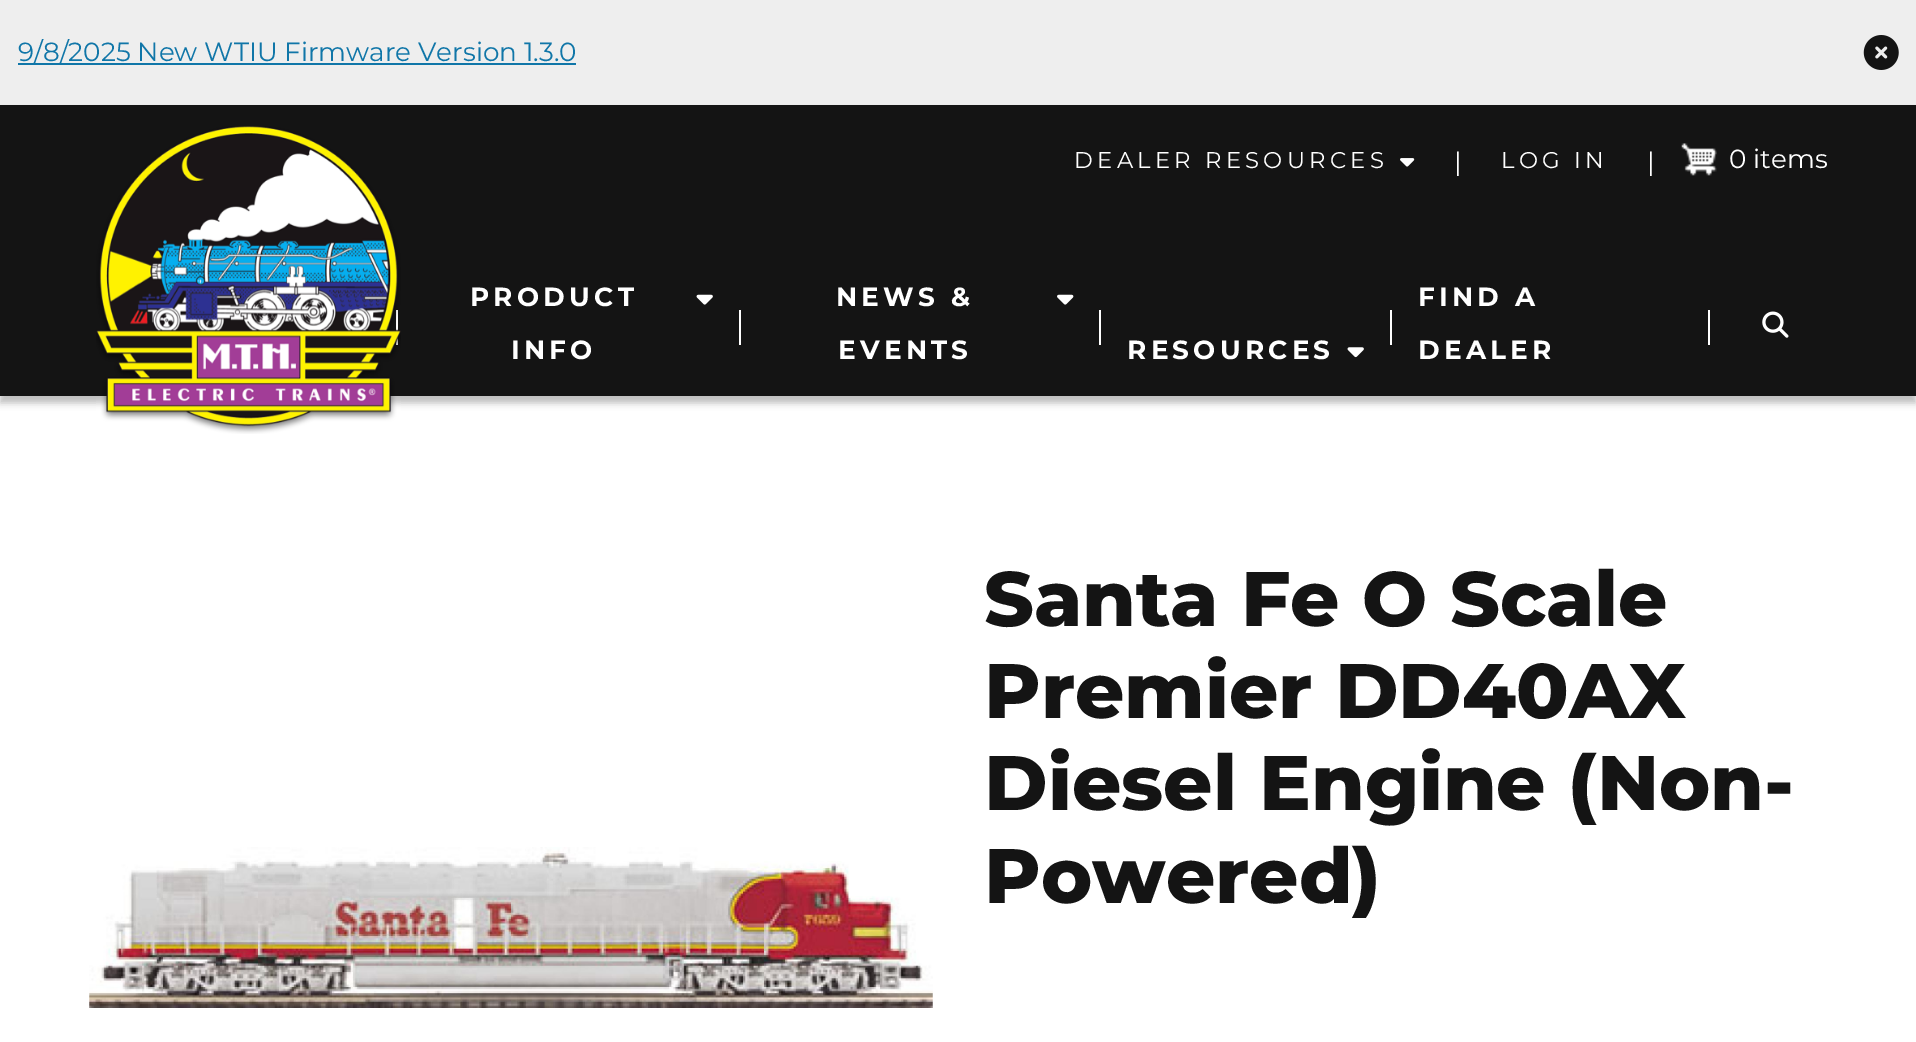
%!PS
<< /PageSize [1916 1042] /PageUsesTransparency true >> setpagedevice
/rgb { 3 { 255 div 3 1 roll } repeat setrgbcolor } def
/font { [ exch dup neg 0 0 3 -1 roll 0 0 ] selectfont } def
/text { moveto show } def
/alpha { dup .setfillconstantalpha .setstrokeconstantalpha } def
/roundrect { 5 dict begin { /r /h /w /y /x } { exch def } forall
  x r add y moveto x w add y 2 copy h add r arct x w add y h add x 1 index r arct
  x y h add x y r arct x y 2 copy exch w add exch r arct closepath end } def
/shadow { 12 dict begin { /a /b /q /h /w /y /x } { exch def } forall gsave /was 0 def
  9 -2 -9 { dup b mul 4 div /e exch def 1 sub .425 mul 2.718 exch exp 1 add a .99 .min exch div /now exch def
    1 1 now sub 1 was sub div sub alpha /was now def
    w h .min e 2 mul add 0 gt { x e sub y e sub w e 2 mul add h e 2 mul add
      q e add b .6 mul add w h .min 2 div e add .min 0 .max roundrect fill } if } for grestore end } def
/picture { 5 dict begin { /h /w /y /x /name } { exch def } forall
  gsave x y translate w h scale
  w h 8 [w 0 0 h 0 0] name (r) file false 3 colorimage grestore end } def
0 .pushpdf14devicefilter
0 1042 translate 1 -1 scale
4 setmiterlimit
255 255 255 rgb
0 0 1916 1042 rectfill
238 238 238 rgb
0 0 1916 105 rectfill
16 118 168 rgb
18 63 558 2 rectfill
(img_01.rgb) 1863 35 36 35 picture
0 0 0 rgb
0 112 1916 291 0 3.5 0.25 shadow
20 20 20 rgb
0 105 1916 291 rectfill
255 255 255 rgb
396 310 2 35 rectfill
(img_02.rgb) 96 126 305 308 picture
(img_03.rgb) 1400 158 15 9 picture
(img_04.rgb) 1681 143 36 33 picture
(img_05.rgb) 696 294 17 11 picture
739 310 2 35 rectfill
(img_06.rgb) 1057 294 17 11 picture
1390 310 2 35 rectfill
1708 310 2 35 rectfill
(img_07.rgb) 1762 311 27 27 picture
1099 310 2 35 rectfill
(img_08.rgb) 1347 347 17 11 picture
(img_09.rgb) 89 847 844 161 picture
/Montserrat-Regular 26.25 font
16 118 168 rgb
(9/8/2025 New WTIU Firmware Version 1.3.0) 18 61 text
/Montserrat-Regular 22.75 font
255 255 255 rgb
1074 168 moveto 4.25 0 (DEALER RESOURCES) ashow
/Montserrat-Regular 26.25 font
(|) 1454 171 text
/Montserrat-Regular 22.75 font
1501 168 moveto 4.25 0 (LOG IN) ashow
/Montserrat-Regular 26.25 font
(|) 1647 171 text
(0 items) 1729 168 text
/Montserrat-Bold 26.25 font
470 306 moveto 4.25 0 (PRODUCT) ashow
511 359 moveto 4.25 0 (INFO) ashow
836 306 moveto 4.25 0 (NEWS &) ashow
838 359 moveto 4.25 0 (EVENTS) ashow
1418 306 moveto 4.25 0 (FIND A) ashow
1418 359 moveto 4.25 0 (DEALER) ashow
1127 359 moveto 4.25 0 (RESOURCES) ashow
/Montserrat-ExtraBold 77 font
20 20 20 rgb
(Santa Fe O Scale) 984 626 text
(Premier DD40AX) 984 718 text
(Diesel Engine \(Non-) 984 810 text
(Powered\)) 984 903 text
.poppdf14devicefilter showpage
